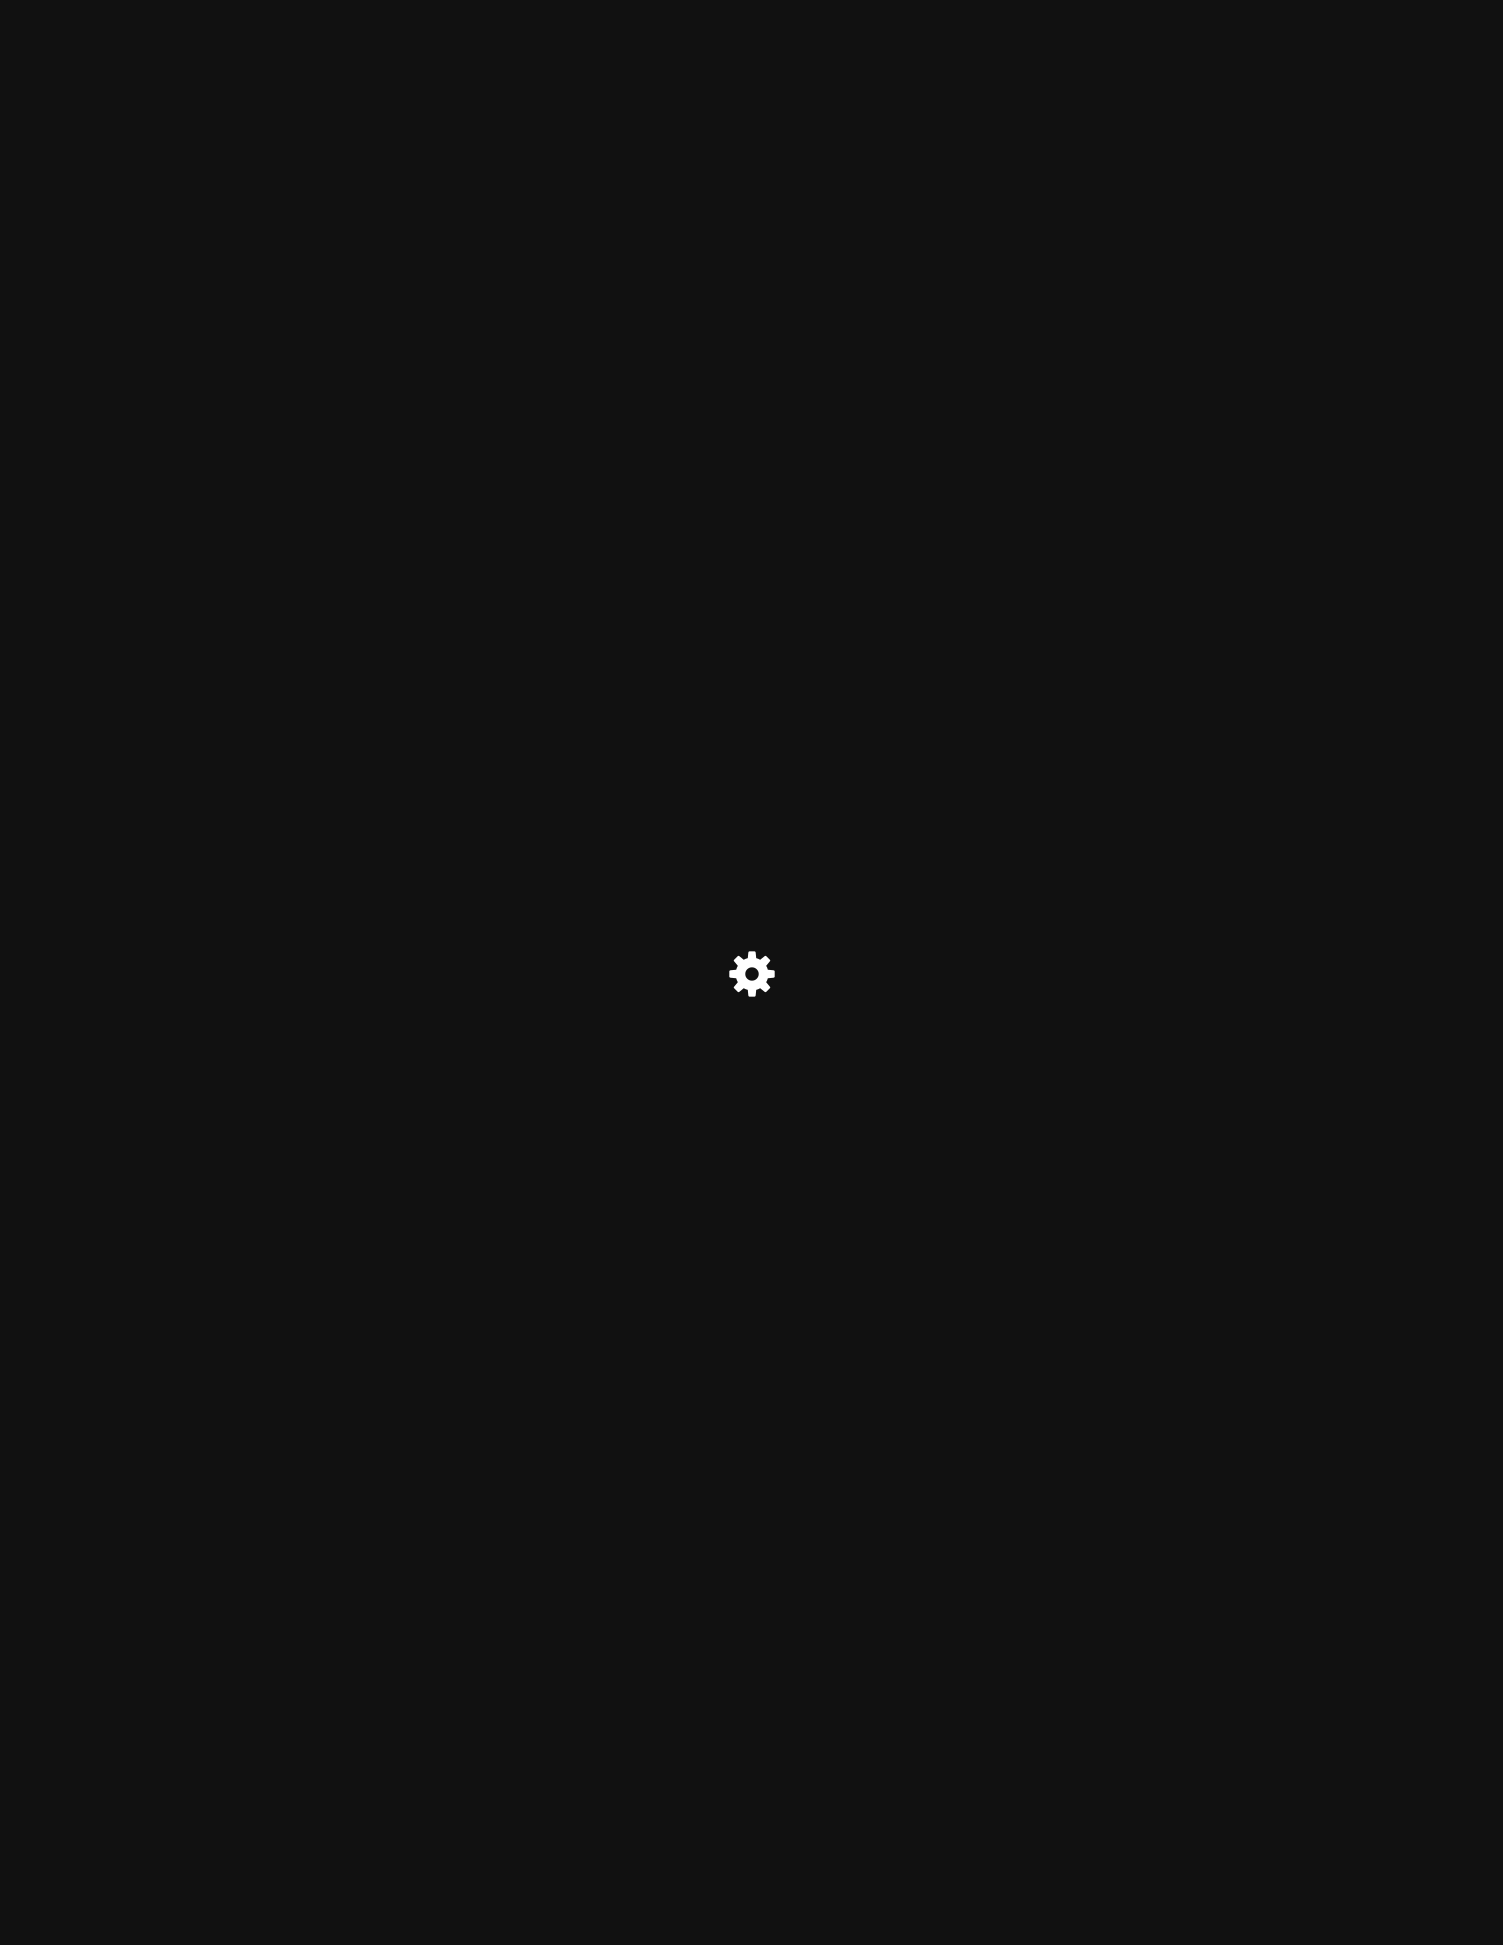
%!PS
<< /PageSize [1503 1945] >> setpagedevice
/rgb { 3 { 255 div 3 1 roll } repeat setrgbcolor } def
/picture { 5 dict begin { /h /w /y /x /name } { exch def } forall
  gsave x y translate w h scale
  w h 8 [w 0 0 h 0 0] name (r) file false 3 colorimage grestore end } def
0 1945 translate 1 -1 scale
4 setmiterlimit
17 17 17 rgb
0 0 1503 1945 rectfill
(img_01.rgb) 729 951 46 46 picture
showpage
